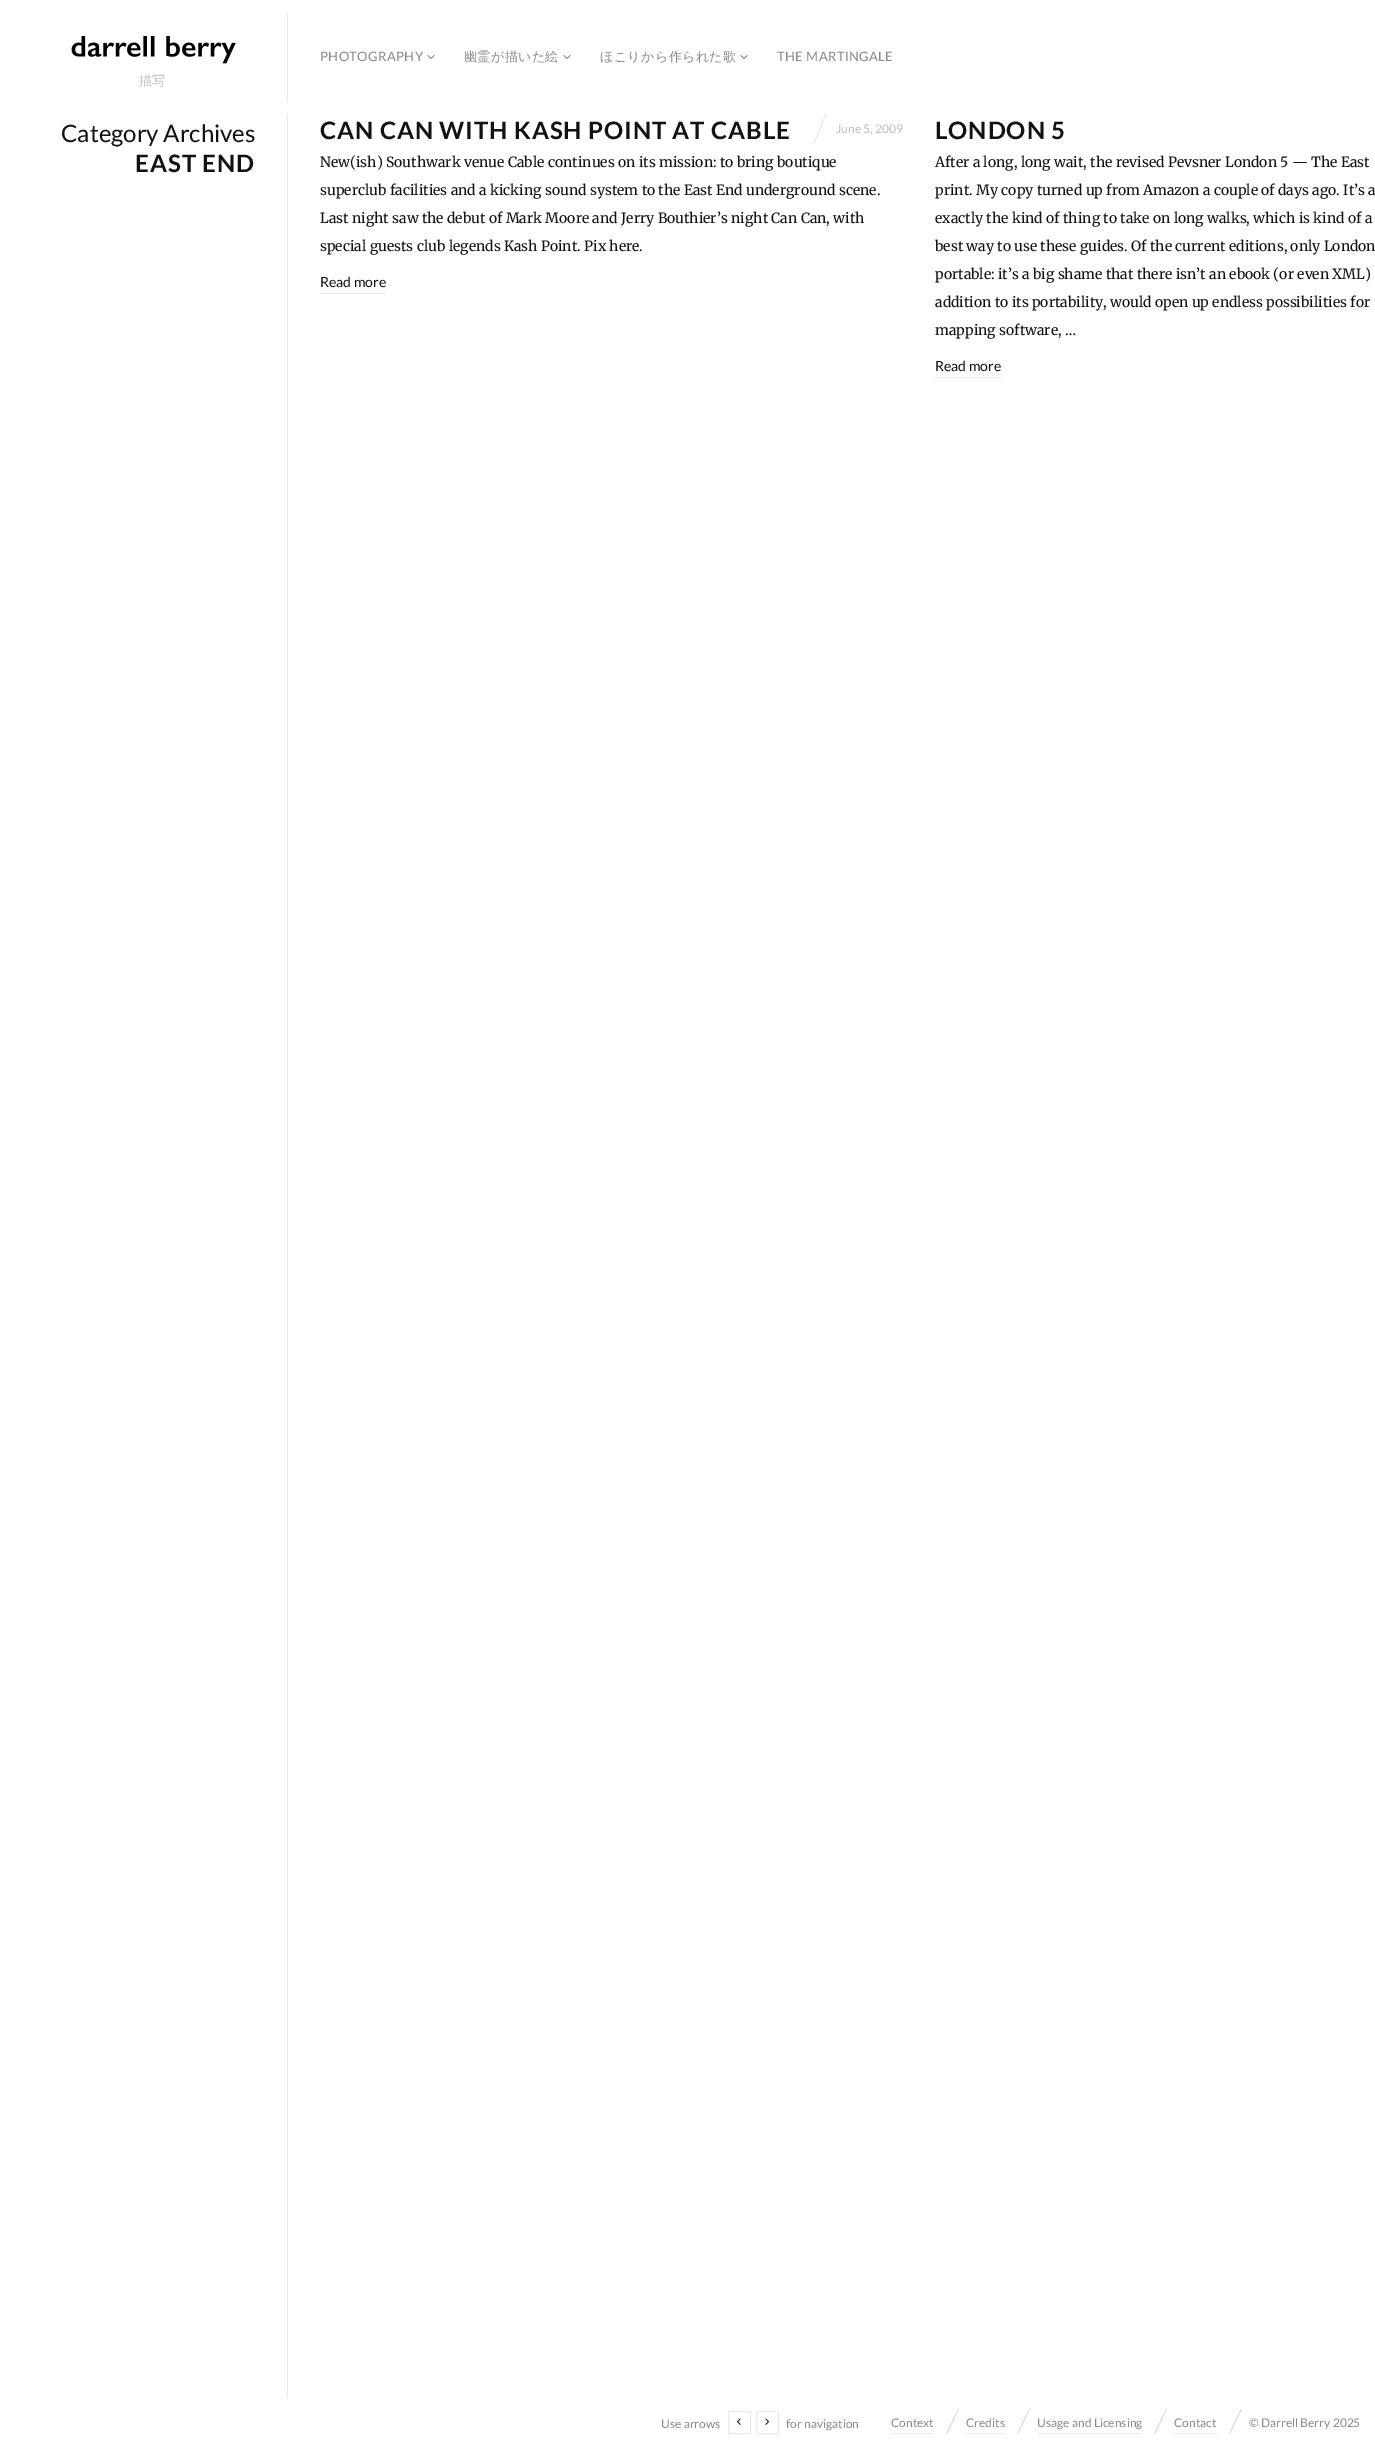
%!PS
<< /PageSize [1375 2448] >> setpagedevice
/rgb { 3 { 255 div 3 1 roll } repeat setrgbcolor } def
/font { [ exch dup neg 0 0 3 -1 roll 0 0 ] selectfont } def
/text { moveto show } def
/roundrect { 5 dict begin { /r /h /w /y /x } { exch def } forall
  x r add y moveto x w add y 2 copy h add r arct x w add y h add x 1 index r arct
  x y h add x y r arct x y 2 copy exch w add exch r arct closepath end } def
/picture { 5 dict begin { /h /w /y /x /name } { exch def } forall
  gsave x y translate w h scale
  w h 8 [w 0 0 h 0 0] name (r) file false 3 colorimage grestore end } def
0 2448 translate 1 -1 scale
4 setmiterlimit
255 255 255 rgb
0 0 1375 2448 rectfill
(img_01.rgb) 427 55 8 4 picture
(img_01.rgb) 563 55 8 4 picture
(img_01.rgb) 740 55 8 4 picture
235 235 235 rgb
287 12 1 90 rectfill
(img_02.rgb) 71 36 165 28 picture
287 114 1 2284 rectfill
(img_03.rgb) 813 114 13 30 picture
320 293 66 1 rectfill
935 377 66 1 rectfill
234 234 234 rgb
728.5 2411.5 22 22 0.5 roundrect stroke
(img_04.rgb) 737 2418 4 7 picture
756.5 2411.5 22 22 0.5 roundrect stroke
(img_05.rgb) 765 2418 4 7 picture
235 235 235 rgb
891 2433 43 1 rectfill
(img_06.rgb) 946 2409 13 25 picture
966 2433 39 1 rectfill
(img_06.rgb) 1017 2409 13 25 picture
1037 2433 105 1 rectfill
(img_06.rgb) 1154 2409 13 25 picture
1174 2433 43 1 rectfill
(img_06.rgb) 1229 2409 13 25 picture
/Lato-Regular 13 font
138 138 138 rgb
320 61 moveto 0.4 0 (PHOTOGRAPHY) ashow
/WenQuanYiZenHei-Medium 13 font
464 61 moveto 0.4 0 (幽霊が描いた絵) ashow
600 61 moveto 0.4 0 (ほこりから作られた歌) ashow
/Lato-Regular 13 font
777 61 moveto 0.4 0 (THE MARTINGALE) ashow
/WenQuanYiZenHei-Medium 13 font
189 189 189 rgb
(描写) 139 85 text
/Lato-Regular 24 font
17 17 22 rgb
(Category Archives) 61 142 text
/Lato-Bold 24 font
135 172 moveto 0.95 0 (EAST END) ashow
320 139 moveto 0.95 0 (CAN CAN WITH KASH POINT AT CABLE) ashow
/Lato-Regular 12 font
189 189 189 rgb
(June 5, 2009) 836 133 text
/Merriweather-Light 14 font
17 17 22 rgb
(New\(ish\) Southwark venue Cable continues on its mission: to bring boutique) 320 167 text
(superclub facilities and a kicking sound system to the East End underground scene.) 320 195 text
(Last night saw the debut of Mark Moore and Jerry Bouthier’s night Can Can, with) 320 223 text
(special guests club legends Kash Point. Pix here.) 320 251 text
/Lato-Regular 14 font
(Read more) 320 287 text
/Lato-Bold 24 font
935 139 moveto 0.95 0 (LONDON 5) ashow
/Merriweather-Light 14 font
(After a long, long wait, the revised Pevsner London 5 — The East) 935 167 text
(print. My copy turned up from Amazon a couple of days ago. It’s a) 935 195 text
(exactly the kind of thing to take on long walks, which is kind of a) 935 223 text
(best way to use these guides. Of the current editions, only London) 935 251 text
(portable: it’s a big shame that there isn’t an ebook \(or even XML\)) 935 279 text
(addition to its portability, would open up endless possibilities for) 935 307 text
(mapping software, …) 935 335 text
/Lato-Regular 14 font
(Read more) 935 371 text
/Lato-Regular 12 font
138 138 138 rgb
(Use arrows) 661 2428 text
(for navigation) 786 2428 text
(Context) 891 2427 text
(Credits) 966 2427 text
(Usage and Licensing) 1037 2427 text
(Contact) 1174 2427 text
(© Darrell Berry 2025) 1249 2427 text
showpage
